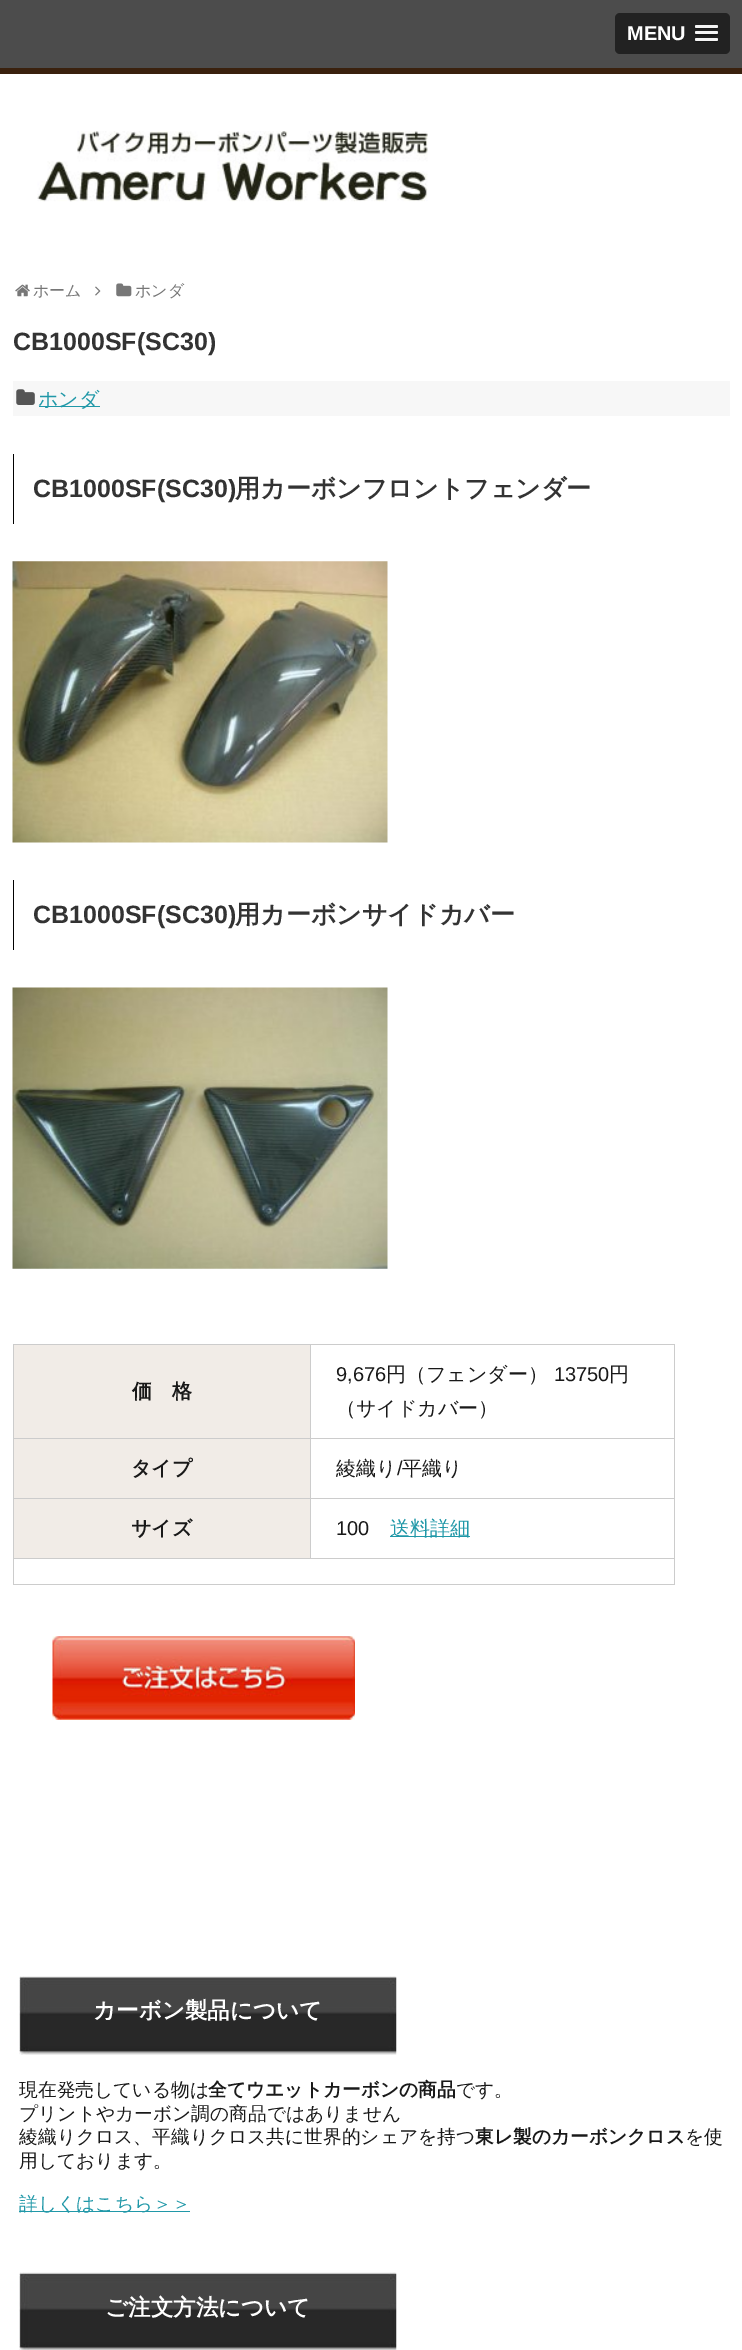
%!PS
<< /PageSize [742 2350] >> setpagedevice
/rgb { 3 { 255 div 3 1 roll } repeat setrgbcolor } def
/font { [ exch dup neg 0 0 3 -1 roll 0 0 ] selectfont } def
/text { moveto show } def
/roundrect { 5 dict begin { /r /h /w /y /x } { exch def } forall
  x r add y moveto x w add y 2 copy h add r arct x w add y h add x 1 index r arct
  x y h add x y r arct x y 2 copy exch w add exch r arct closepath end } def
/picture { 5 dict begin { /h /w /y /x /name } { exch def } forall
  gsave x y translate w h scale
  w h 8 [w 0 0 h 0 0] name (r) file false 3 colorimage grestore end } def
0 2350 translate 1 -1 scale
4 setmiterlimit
255 255 255 rgb
0 0 742 2350 rectfill
76 76 76 rgb
0 0 742 68 rectfill
34 34 34 rgb
615 13 115 41 5 roundrect fill
26 26 26 rgb
695 27 moveto -1 2.5 4 2 5 2 rcurveto 13 0 rlineto 1 0 4.5 1 5 -1 rcurveto 0 -0.5 0 -1.5 -0.5 -1.5 rcurveto 0 0.5 -0.5 1 -1.5 1 rcurveto -20 0 rlineto 0 0 -0.5 -0.5 -1 -0.5 rcurveto closepath fill
245 245 245 rgb
695 25 23 3 1.5 roundrect fill
26 26 26 rgb
695.5 33.5 moveto -0.5 1.5 rlineto 0.5 2 4 1 5 1 rcurveto 3 0 rlineto 2 0 13.5 0.5 14.5 -0.5 rcurveto 0.5 -0.5 0.5 -1.5 0 -2.5 rcurveto -1 0.5 rlineto -2 0.5 -20.5 0.5 -21 0 rcurveto closepath fill
245 245 245 rgb
695 31 23 3 1.5 roundrect fill
26 26 26 rgb
695.5 39.5 moveto -0.5 1.5 rlineto 0.5 2 4 1 5 1 rcurveto 13 0 rlineto 1.5 0 5 1 5 -1.5 rcurveto -0.5 -1 rlineto -1 0.5 rlineto -2 0.5 -20.5 0.5 -21 -0.5 rcurveto closepath fill
245 245 245 rgb
695 38 23 3 1.5 roundrect fill
58 33 14 rgb
0 68 742 6 rectfill
(img_01.rgb) 37 131 391 71 picture
(img_02.rgb) 15 284 15 13 picture
(img_03.rgb) 95 286 6 10 picture
(img_04.rgb) 116 283 16 14 picture
247 247 247 rgb
13 381 717 35 rectfill
(img_05.rgb) 16 389 19 16 picture
32 152 168 rgb
39 406 61 1 rectfill
0 0 0 rgb
13 454 1 70 rectfill
(img_06.rgb) 12 561 376 282 picture
13 880 1 70 rectfill
(img_07.rgb) 12 987 376 282 picture
241 236 231 rgb
14 1345 296 93 rectfill
204 204 204 rgb
310 1344 365 1 rectfill
310 1438 365 1 rectfill
310 1498 365 1 rectfill
13 1558 662 1 rectfill
310 1498 1 61 rectfill
13 1498 298 1 rectfill
310 1438 1 61 rectfill
13 1438 298 1 rectfill
310 1344 1 95 rectfill
13 1344 298 1 rectfill
674 1558 1 27 rectfill
13 1584 662 1 rectfill
13 1558 1 27 rectfill
13 1498 1 61 rectfill
13 1438 1 61 rectfill
13 1344 1 95 rectfill
674 1498 1 61 rectfill
674 1438 1 61 rectfill
674 1344 1 95 rectfill
241 236 231 rgb
14 1439 296 59 rectfill
14 1499 296 59 rectfill
32 152 168 rgb
390 1536 80 1 rectfill
(img_08.rgb) 52 1636 303 84 picture
(img_09.rgb) 19 1976 378 79 picture
19 2211 171 1 rectfill
(img_10.rgb) 19 2272 378 78 picture
/LiberationSans-Bold 20 font
255 255 255 rgb
(MENU) 627 40 text
/WenQuanYiZenHei-Medium 16 font
119 119 119 rgb
(ホーム) 33 296 text
(ホンダ) 135 296 text
/LiberationSans-Bold 25 font
51 51 51 rgb
(CB1000SF\(SC30\)) 13 350 text
/WenQuanYiZenHei-Medium 20 font
32 152 168 rgb
(ホンダ) 38 406 text
/LiberationSans-Bold 25 font
51 51 51 rgb
(CB1000SF\(SC30\)) 33 497 text
/WenQuanYiZenHei-Bold 25 font
(用カーボンフロントフェンダー) 235 497 text
/LiberationSans-Bold 25 font
(CB1000SF\(SC30\)) 33 923 text
/WenQuanYiZenHei-Bold 25 font
(用カーボンサイドカバー) 235 923 text
/WenQuanYiZenHei-Bold 20 font
25 25 25 rgb
(価　格) 132 1398 text
/LiberationSans-Regular 20 font
(9,676) 336 1381 text
/WenQuanYiZenHei-Medium 20 font
(円（フェンダー）) 386 1381 text
/LiberationSans-Regular 20 font
(13750) 554 1381 text
/WenQuanYiZenHei-Medium 20 font
(円) 609 1381 text
(（サイドカバー）) 336 1415 text
/WenQuanYiZenHei-Bold 20 font
(タイプ) 131 1475 text
/WenQuanYiZenHei-Medium 20 font
(綾織り) 336 1475 text
/LiberationSans-Regular 20 font
(/) 397 1475 text
/WenQuanYiZenHei-Medium 20 font
(平織り) 402 1475 text
/WenQuanYiZenHei-Bold 20 font
(サイズ) 131 1535 text
/LiberationSans-Regular 20 font
(100) 336 1535 text
/WenQuanYiZenHei-Medium 20 font
32 152 168 rgb
(送料詳細) 390 1535 text
/WenQuanYiZenHei-Bold 22.5 font
255 255 255 rgb
(カーボン製品について) 93 2018 text
/WenQuanYiZenHei-Medium 18.75 font
25 25 25 rgb
(現在発売している物は) 19 2096 text
/WenQuanYiZenHei-Bold 18.75 font
(全てウエットカーボンの商品) 208 2096 text
/WenQuanYiZenHei-Medium 18.75 font
(です。) 456 2096 text
(プリントやカーボン調の商品ではありません) 19 2120 text
(綾織りクロス、平織りクロス共に世界的シェアを持つ) 19 2143 text
/WenQuanYiZenHei-Bold 18.75 font
(東レ製のカーボンクロス) 475 2143 text
/WenQuanYiZenHei-Medium 18.75 font
(を使) 685 2143 text
(用しております。) 19 2167 text
32 152 168 rgb
(詳しくはこちら＞＞) 19 2210 text
/WenQuanYiZenHei-Bold 22.5 font
255 255 255 rgb
(ご注文方法について) 105 2315 text
showpage
